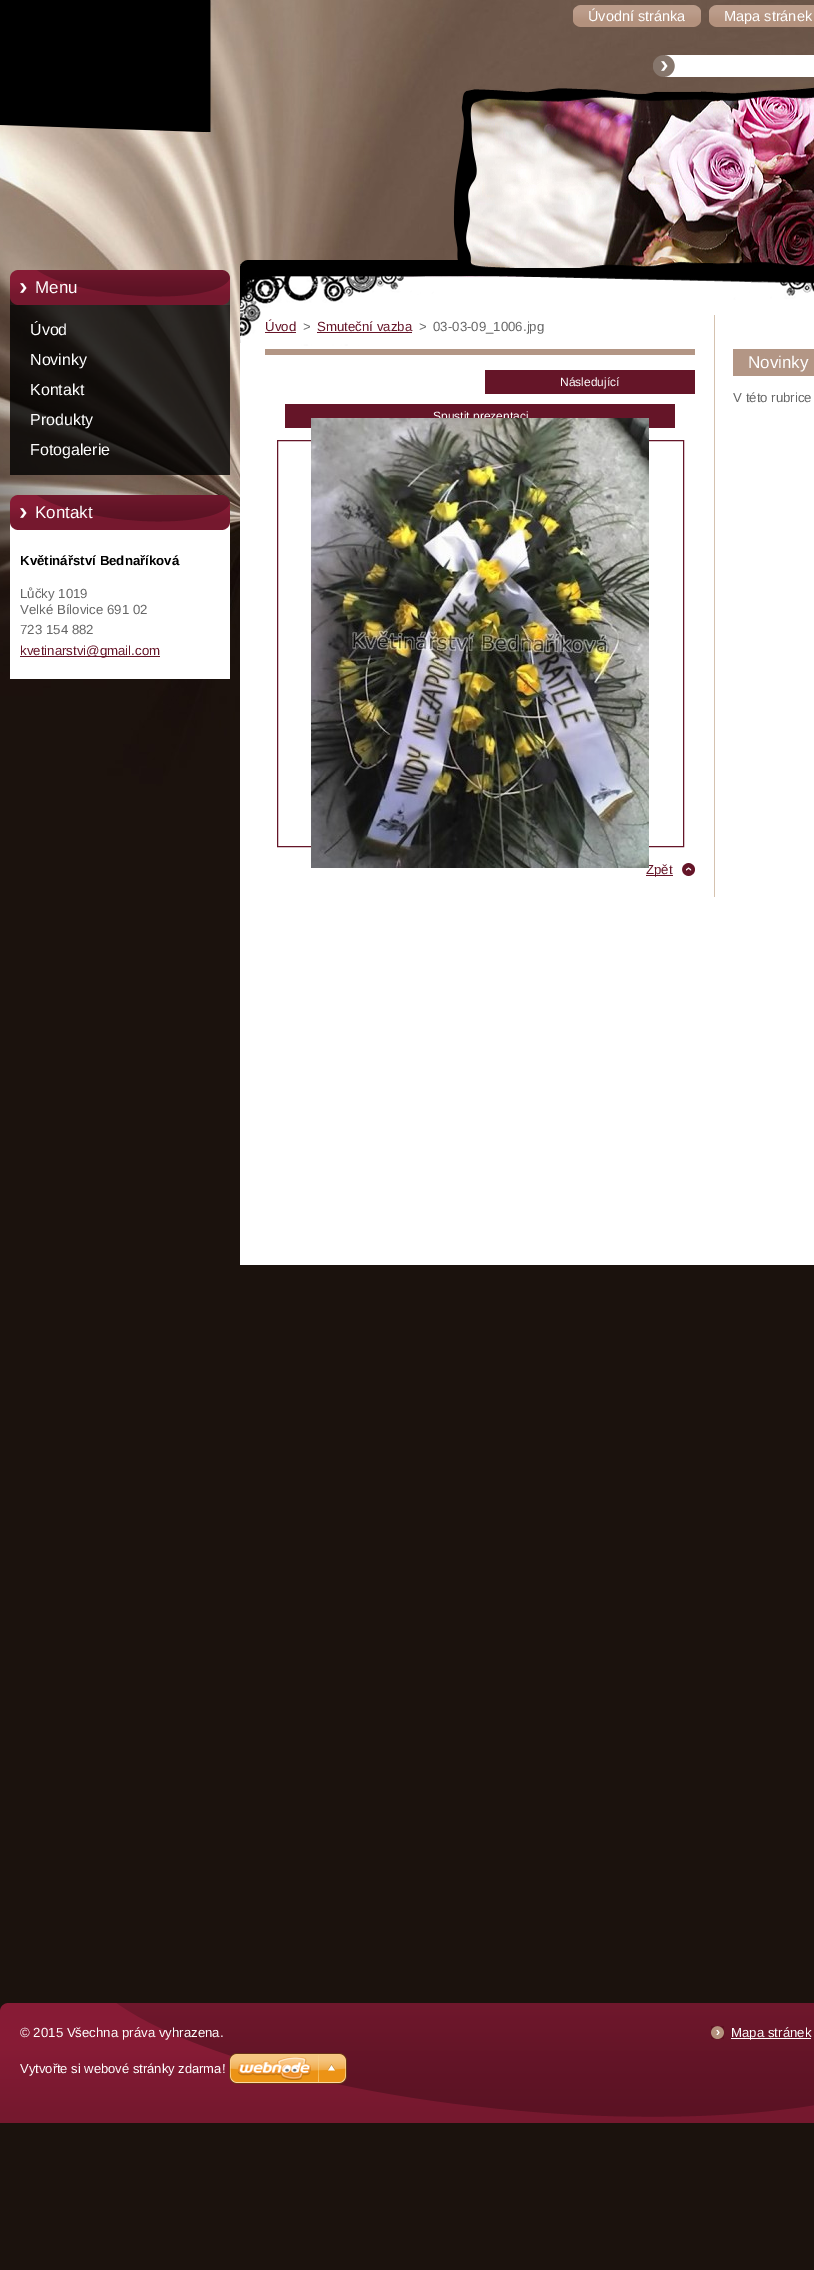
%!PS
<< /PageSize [814 2270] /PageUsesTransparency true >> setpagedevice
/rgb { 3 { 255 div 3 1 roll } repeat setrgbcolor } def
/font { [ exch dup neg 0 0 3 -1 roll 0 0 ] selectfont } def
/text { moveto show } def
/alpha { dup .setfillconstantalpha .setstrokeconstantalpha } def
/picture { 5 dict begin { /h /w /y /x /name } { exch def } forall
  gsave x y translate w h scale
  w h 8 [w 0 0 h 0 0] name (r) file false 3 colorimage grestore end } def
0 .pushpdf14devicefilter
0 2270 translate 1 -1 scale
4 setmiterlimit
27 18 13 rgb
0 0 814 2270 rectfill
(img_01.rgb) 0 0 814 786 picture
(img_02.rgb) 0 0 211 132 picture
255 255 255 rgb
240 265 574 1000 rectfill
(img_03.rgb) 573 5 15 22 picture
(img_04.rgb) 588 5 98 22 picture
(img_05.rgb) 686 5 15 22 picture
(img_06.rgb) 709 5 15 22 picture
(img_08.rgb) 724 5 88 22 picture
(img_09.rgb) 653 55 161 22 picture
(img_10.rgb) 240 260 574 10 picture
(img_12.rgb) 466 94 348 174 picture
(img_11.rgb) 453 87 361 181 picture
(img_13.rgb) 10 270 220 35 picture
0.8 alpha
0 0 0 rgb
10 305 220 170 rectfill
1 alpha
255 255 255 rgb
10 530 220 149 rectfill
(img_14.rgb) 10 495 220 35 picture
101 21 40 rgb
20 656 140 1 rectfill
(img_15.rgb) 240 270 574 76 picture
213 194 175 rgb
714 315 1 582 rectfill
101 21 40 rgb
265 332 31 1 rectfill
317 332 95 1 rectfill
179 150 133 rgb
265 349 430 6 rectfill
101 21 40 rgb
485 370 210 24 rectfill
285 404 390 24 rectfill
277.5 440.5 406 406 rectstroke
(img_17.rgb) 682 863 13 13 picture
646 875 27 1 rectfill
179 150 133 rgb
733 349 81 27 rectfill
(img_18.rgb) 0 2003 814 120 picture
(img_19.rgb) 711 2026 13 13 picture
255 255 255 rgb
731 2038 80 1 rectfill
(img_20.rgb) 229 2053 118 31 picture
/LiberationSans-Regular 14.5 font
(Úvodní stránka) 588 21 text
(Mapa stránek) 724 21 text
(img_07.rgb) 812 5 2 22 picture
/LiberationSans-Regular 17 font
(Menu) 35 293 text
/LiberationSans-Regular 16 font
(Úvod) 30 335 text
(Novinky) 30 365 text
(Kontakt) 30 395 text
(Produkty) 30 425 text
(Fotogalerie) 30 455 text
/LiberationSans-Regular 17 font
(Kontakt) 35 518 text
/LiberationSans-Bold 13.25 font
0 0 0 rgb
(Květinářství Bednaříková) 20 565 text
/LiberationSans-Regular 13.25 font
102 102 102 rgb
(Lůčky 1019) 20 598 text
(Velké Bílovice 691 02) 20 614 text
(723 154 882) 20 634 text
101 21 40 rgb
(kvetinarstvi@gmail.com) 20 655 text
(Úvod) 265 331 text
102 102 102 rgb
(>) 303 331 text
101 21 40 rgb
(Smuteční vazba) 317 331 text
102 102 102 rgb
(>) 419 331 text
(03-03-09_1006.jpg) 433 331 text
/LiberationSans-Regular 12 font
255 255 255 rgb
(Následující) 560 386 text
(Spustit prezentaci) 433 420 text
/LiberationSans-Regular 13.25 font
101 21 40 rgb
(Zpět) 646 874 text
(img_16.rgb) 311 418 338 450 picture
/LiberationSans-Regular 17 font
255 255 255 rgb
(Novinky) 748 368 text
/LiberationSans-Regular 13.25 font
102 102 102 rgb
(V této rubrice) 733 402 text
255 255 255 rgb
(© 2015 Všechna práva vyhrazena.) 20 2037 text
(Mapa stránek) 731 2037 text
/LiberationSans-Regular 13 font
(Vytvořte si webové stránky zdarma!) 20 2073 text
.poppdf14devicefilter showpage
